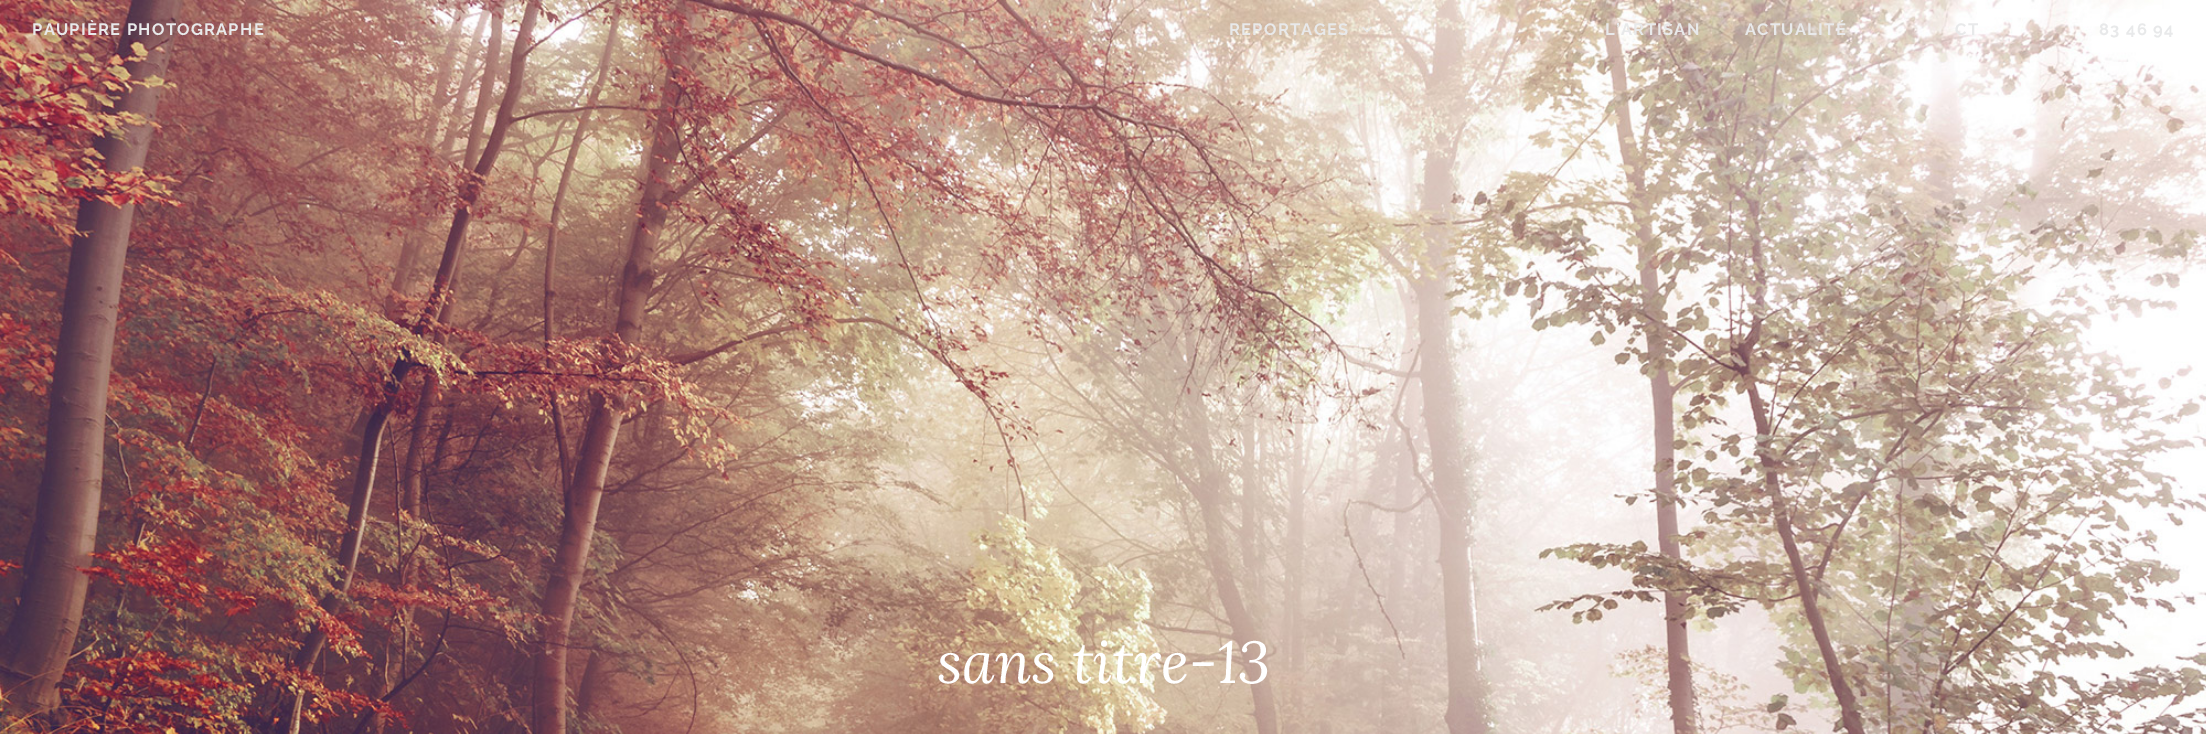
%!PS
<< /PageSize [2206 734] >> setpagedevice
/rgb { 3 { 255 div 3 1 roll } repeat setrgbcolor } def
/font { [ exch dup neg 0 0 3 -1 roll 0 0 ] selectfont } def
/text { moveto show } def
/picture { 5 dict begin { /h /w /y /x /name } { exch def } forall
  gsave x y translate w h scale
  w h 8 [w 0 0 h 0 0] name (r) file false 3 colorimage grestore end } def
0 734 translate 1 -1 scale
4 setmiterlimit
255 255 255 rgb
0 0 2206 734 rectfill
(img_01.rgb) 0 0 2206 734 picture
(img_02.rgb) 1362 26 10 7 picture
/Raleway-Bold 16.5 font
232 233 234 rgb
32 35 moveto 1.25 0 (PAUPIÈRE PHOTOGRAPHE) ashow
1229 35 moveto 1.25 0 (REPORTAGES) ashow
1605 35 moveto 1.25 0 (L’ARTISAN) ashow
1745 35 moveto 1.25 0 (ACTUALITÉ) ashow
1955 35 moveto 1.25 0 (CT) ashow
2099 35 moveto 1.25 0 (83 46 94) ashow
/Lora-Italic 59 font
255 255 255 rgb
(sans titre-13) 937 683 text
showpage
